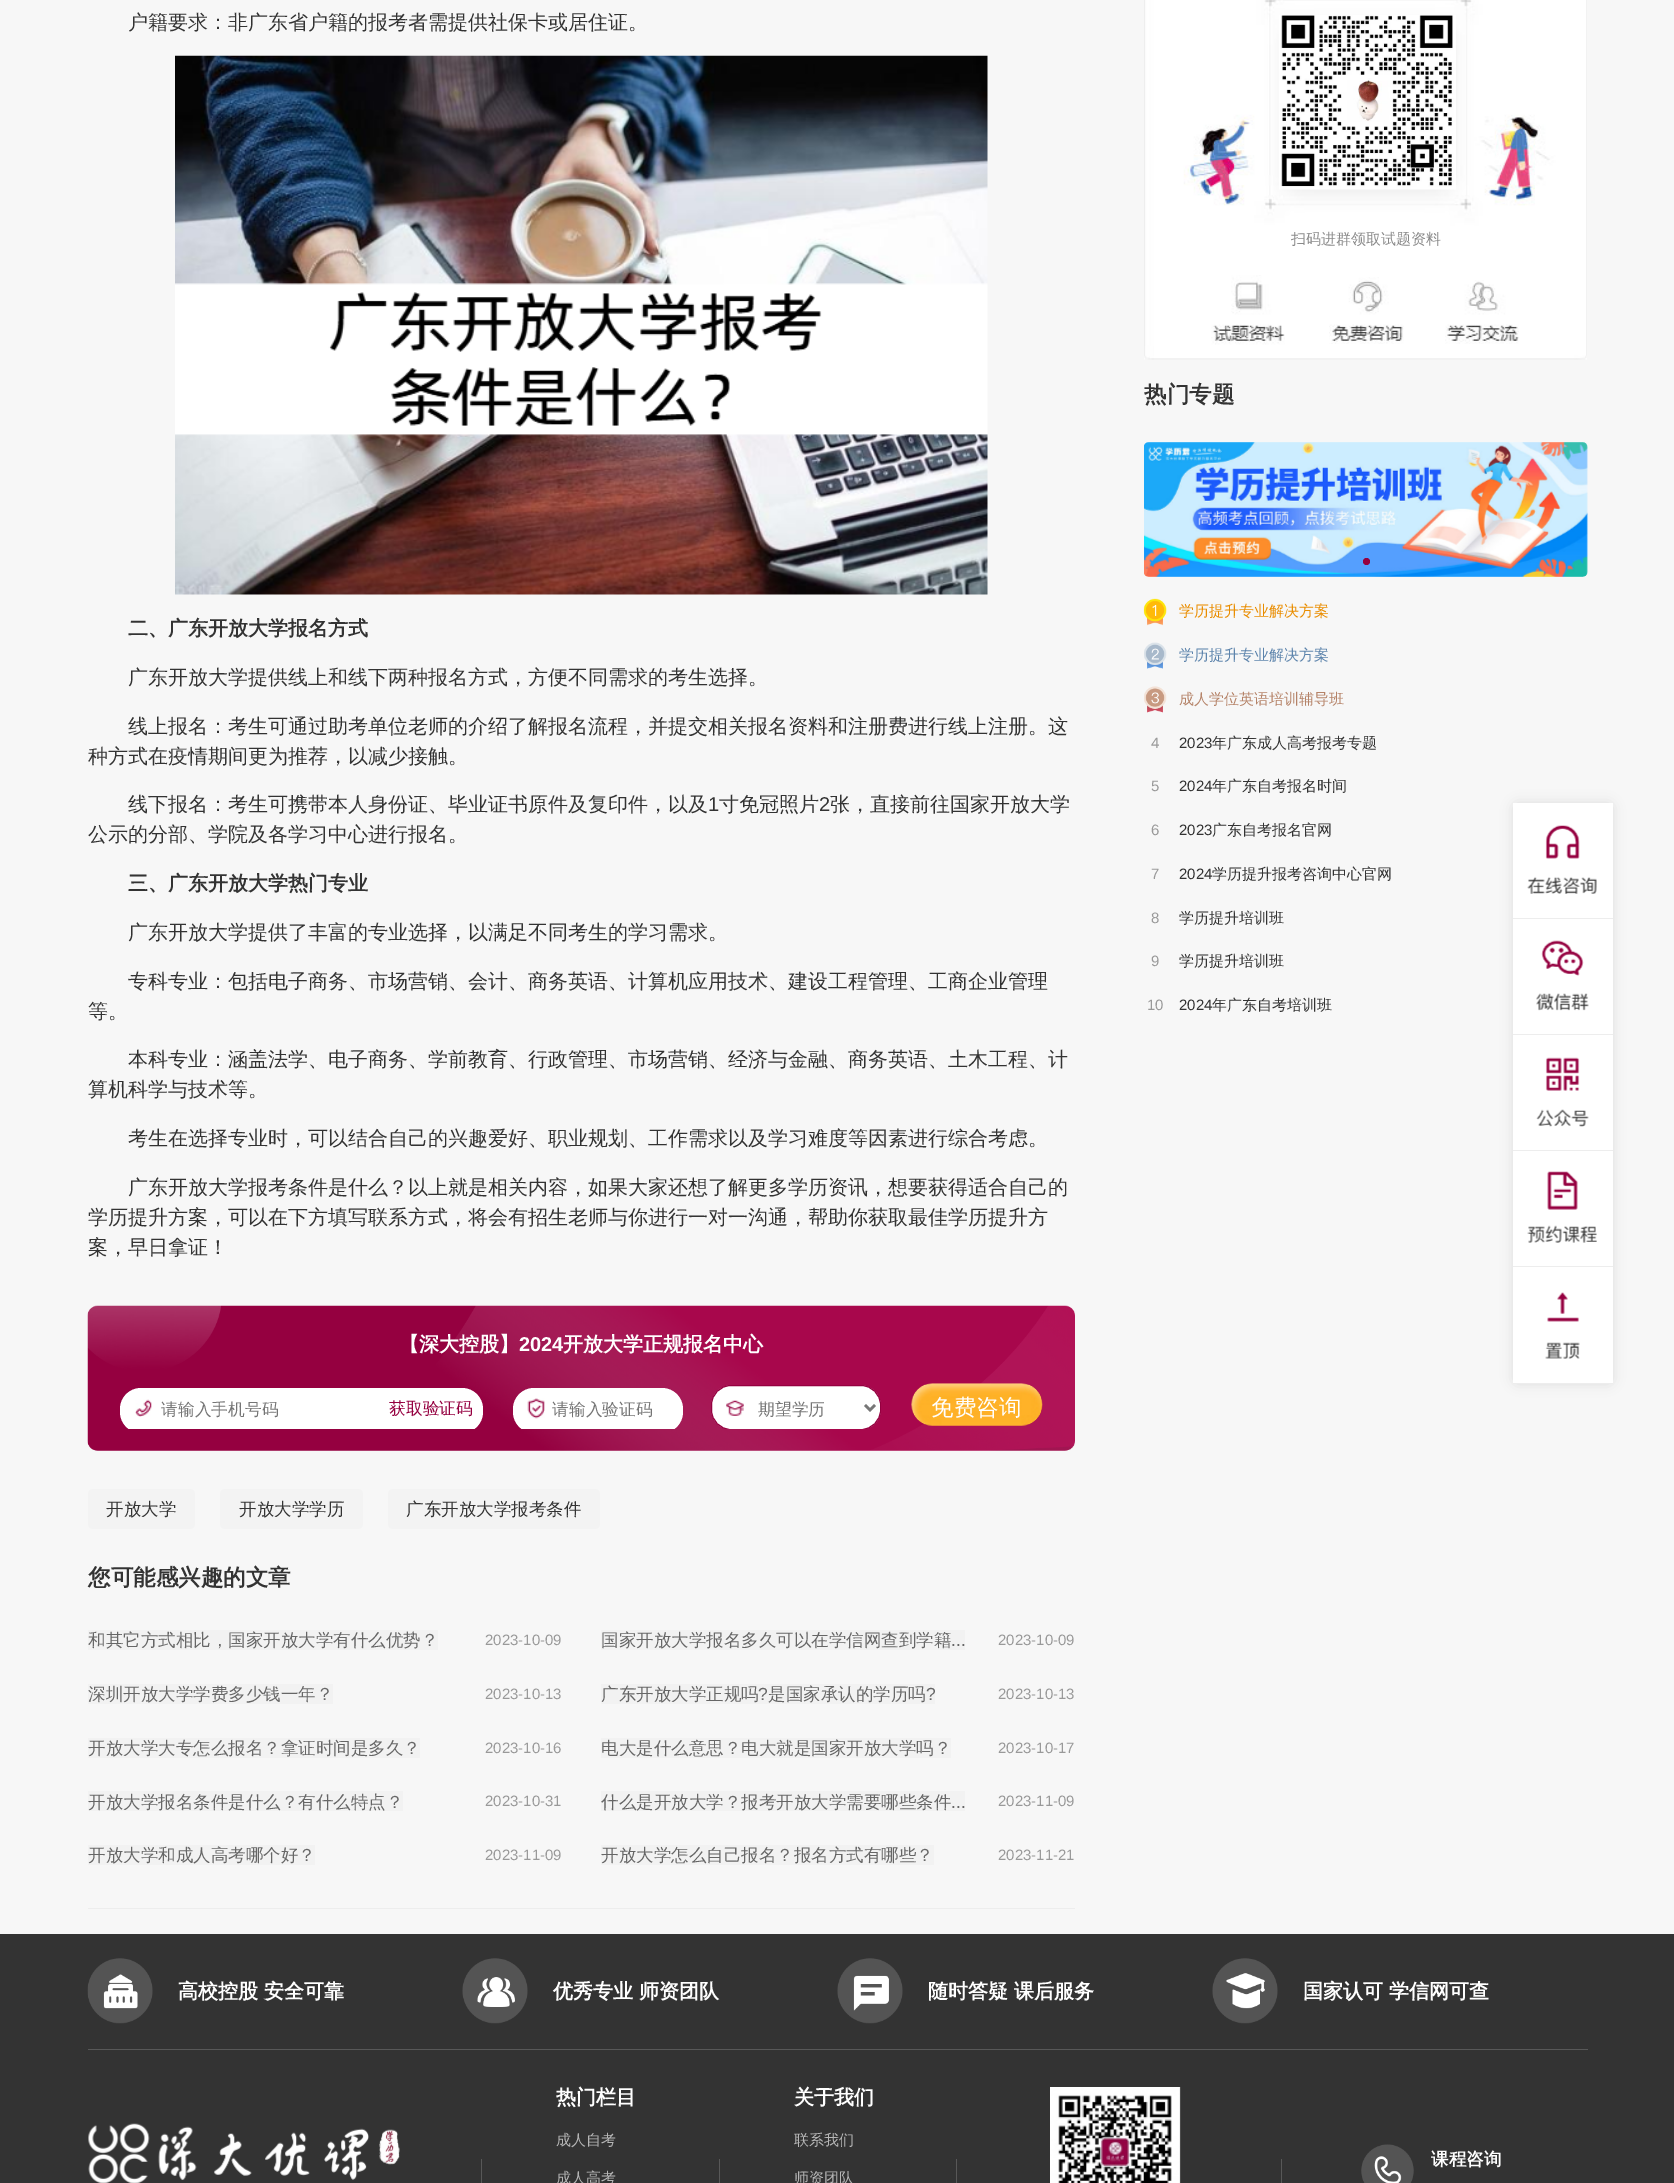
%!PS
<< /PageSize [1674 2183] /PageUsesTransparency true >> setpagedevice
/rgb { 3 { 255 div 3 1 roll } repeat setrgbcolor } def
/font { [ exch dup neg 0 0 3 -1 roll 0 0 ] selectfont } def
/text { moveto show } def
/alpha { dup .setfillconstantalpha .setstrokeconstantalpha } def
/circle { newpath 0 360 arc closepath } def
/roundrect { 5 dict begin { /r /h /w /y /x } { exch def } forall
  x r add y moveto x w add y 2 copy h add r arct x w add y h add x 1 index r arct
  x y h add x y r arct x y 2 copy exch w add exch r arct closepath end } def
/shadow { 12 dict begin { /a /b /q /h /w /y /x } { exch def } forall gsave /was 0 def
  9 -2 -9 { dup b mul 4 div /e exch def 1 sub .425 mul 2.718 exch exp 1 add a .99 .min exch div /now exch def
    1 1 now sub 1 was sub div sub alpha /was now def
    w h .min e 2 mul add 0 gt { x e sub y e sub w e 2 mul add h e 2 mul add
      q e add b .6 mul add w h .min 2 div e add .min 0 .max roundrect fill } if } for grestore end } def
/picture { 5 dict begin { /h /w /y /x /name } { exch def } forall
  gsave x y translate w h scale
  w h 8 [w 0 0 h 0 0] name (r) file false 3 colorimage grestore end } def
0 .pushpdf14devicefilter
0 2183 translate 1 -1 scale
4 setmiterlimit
247 247 247 rgb
0 0 1674 2183 rectfill
(img_01.rgb) 175 55 813 540 picture
(img_02.rgb) 87 1305 988 146 picture
gsave
120 1384 363 45 rectclip
255 255 255 rgb
120 1388 363 45 21 roundrect fill
grestore
(img_03.rgb) 135 1399 17 18 picture
gsave
513 1384 170 45 rectclip
255 255 255 rgb
513 1388 170 45 21 roundrect fill
grestore
(img_04.rgb) 527 1398 18 21 picture
gsave
711 1384 170 45 rectclip
255 255 255 rgb
711.5 1385.5 169 44 19.5 roundrect gsave fill grestore
149 0 64 rgb
stroke
grestore
(img_05.rgb) 726 1400 18 16 picture
119 119 119 rgb
2.5 setlinewidth
865 1405 moveto 5 5 rlineto 5 -5 rlineto stroke
(img_06.rgb) 911 1383 132 43 picture
243 243 243 rgb
88 1489 107 40 5 roundrect fill
220 1489 143 40 5 roundrect fill
388 1489 212 40 5 roundrect fill
237 237 237 rgb
88 1908 987 1 rectfill
242 242 242 rgb
88 1630 350 20 rectfill
601 1630 364 20 rectfill
88 1684 245 20 rectfill
601 1684 334 20 rectfill
88 1738 332 20 rectfill
601 1738 350 20 rectfill
88 1791 315 20 rectfill
601 1791 364 20 rectfill
88 1845 227 20 rectfill
601 1845 333 20 rectfill
(img_07.rgb) 1144 0 443 360 picture
(img_08.rgb) 1279 15 177 175 picture
(img_09.rgb) 1211 275 74 70 picture
(img_10.rgb) 1329 277 75 67 picture
(img_11.rgb) 1445 280 74 64 picture
(img_12.rgb) 1144 442 444 135 picture
149 0 64 rgb
1366.5 561.5 3.5 circle fill
(img_13.rgb) 1143 598 24 28 picture
(img_14.rgb) 1144 642 23 27 picture
(img_15.rgb) 1144 686 23 27 picture
0 0 0 rgb
1513 803 100 581 5 6 0.1 shadow
255 255 255 rgb
1513 919 100 464 rectfill
1513 803 100 115 rectfill
237 237 237 rgb
1513 918 100 1 rectfill
(img_16.rgb) 1527 825 70 69 picture
1513 1034 100 1 rectfill
(img_17.rgb) 1536 940 53 71 picture
1513 1150 100 1 rectfill
(img_18.rgb) 1536 1057 53 70 picture
1513 1266 100 1 rectfill
(img_19.rgb) 1527 1171 70 72 picture
1513 1383 100 1 rectfill
(img_20.rgb) 1545 1292 35 67 picture
51 51 51 rgb
0 1934 1674 249 rectfill
88 88 88 rgb
88 2049 1500 1 rectfill
(img_21.rgb) 87 1958 66 66 picture
(img_22.rgb) 462 1958 66 66 picture
(img_23.rgb) 837 1958 66 66 picture
(img_24.rgb) 1212 1958 66 66 picture
(img_25.rgb) 88 2123 312 60 picture
481 2159 1 24 rectfill
719 2159 1 24 rectfill
956 2159 1 24 rectfill
(img_26.rgb) 1050 2087 131 96 picture
(img_27.rgb) 1361 2144 53 39 picture
1281 2159 1 24 rectfill
/WenQuanYiZenHei-Medium 20 font
51 51 51 rgb
(户籍要求：非广东省户籍的报考者需提供社保卡或居住证。) 128 29 text
/WenQuanYiZenHei-Bold 20 font
(二、广东开放大学报名方式) 128 635 text
/WenQuanYiZenHei-Medium 20 font
(广东开放大学提供线上和线下两种报名方式，方便不同需求的考生选择。) 128 684 text
(线上报名：考生可通过助考单位老师的介绍了解报名流程，并提交相关报名资料和注册费进行线上注册。这) 128 733 text
(种方式在疫情期间更为推荐，以减少接触。) 88 763 text
(线下报名：考生可携带本人身份证、毕业证书原件及复印件，以及) 128 811 text
/LiberationSans-Regular 20 font
(1) 708 811 text
/WenQuanYiZenHei-Medium 20 font
(寸免冠照片) 719 811 text
/LiberationSans-Regular 20 font
(2) 819 811 text
/WenQuanYiZenHei-Medium 20 font
(张，直接前往国家开放大学) 830 811 text
(公示的分部、学院及各学习中心进行报名。) 88 841 text
/WenQuanYiZenHei-Bold 20 font
(三、广东开放大学热门专业) 128 890 text
/WenQuanYiZenHei-Medium 20 font
(广东开放大学提供了丰富的专业选择，以满足不同考生的学习需求。) 128 939 text
(专科专业：包括电子商务、市场营销、会计、商务英语、计算机应用技术、建设工程管理、工商企业管理) 128 988 text
(等。) 88 1018 text
(本科专业：涵盖法学、电子商务、学前教育、行政管理、市场营销、经济与金融、商务英语、土木工程、计) 128 1066 text
(算机科学与技术等。) 88 1096 text
(考生在选择专业时，可以结合自己的兴趣爱好、职业规划、工作需求以及学习难度等因素进行综合考虑。) 128 1145 text
(广东开放大学报考条件是什么？以上就是相关内容，如果大家还想了解更多学历资讯，想要获得适合自己的) 128 1194 text
(学历提升方案，可以在下方填写联系方式，将会有招生老师与你进行一对一沟通，帮助你获取最佳学历提升方) 88 1224 text
(案，早日拿证！) 88 1254 text
/WenQuanYiZenHei-Bold 20 font
255 255 255 rgb
(【深大控股】) 399 1351 text
/LiberationSans-Bold 20 font
(2024) 519 1351 text
/WenQuanYiZenHei-Bold 20 font
(开放大学正规报名中心) 563 1351 text
/WenQuanYiZenHei-Medium 16.75 font
117 117 117 rgb
(请输入手机号码) 161 1415 text
149 0 64 rgb
(获取验证码) 389 1414 text
117 117 117 rgb
(请输入验证码) 552 1415 text
(期望学历) 758 1415 text
/WenQuanYiZenHei-Medium 22.5 font
255 255 255 rgb
(免费咨询) 931 1415 text
/WenQuanYiZenHei-Medium 17.5 font
51 51 51 rgb
(开放大学) 106 1515 text
(开放大学学历) 239 1515 text
(广东开放大学报考条件) 406 1515 text
/WenQuanYiZenHei-Bold 22.5 font
(您可能感兴趣的文章) 88 1585 text
/WenQuanYiZenHei-Medium 17.5 font
102 102 102 rgb
(和其它方式相比，国家开放大学有什么优势？) 88 1646 text
/LiberationSans-Regular 15 font
153 153 153 rgb
(2023-10-09) 485 1645 text
/WenQuanYiZenHei-Medium 17.5 font
102 102 102 rgb
(国家开放大学报名多久可以在学信网查到学籍) 601 1646 text
/LiberationSans-Regular 17.5 font
(...) 951 1646 text
/LiberationSans-Regular 15 font
153 153 153 rgb
(2023-10-09) 998 1645 text
/WenQuanYiZenHei-Medium 17.5 font
102 102 102 rgb
(深圳开放大学学费多少钱一年？) 88 1700 text
/LiberationSans-Regular 15 font
153 153 153 rgb
(2023-10-13) 485 1699 text
/WenQuanYiZenHei-Medium 17.5 font
102 102 102 rgb
(广东开放大学正规吗) 601 1700 text
/LiberationSans-Regular 17.5 font
(?) 758 1700 text
/WenQuanYiZenHei-Medium 17.5 font
(是国家承认的学历吗) 768 1700 text
/LiberationSans-Regular 17.5 font
(?) 926 1700 text
/LiberationSans-Regular 15 font
153 153 153 rgb
(2023-10-13) 998 1699 text
/WenQuanYiZenHei-Medium 17.5 font
102 102 102 rgb
(开放大学大专怎么报名？拿证时间是多久？) 88 1754 text
/LiberationSans-Regular 15 font
153 153 153 rgb
(2023-10-16) 485 1753 text
/WenQuanYiZenHei-Medium 17.5 font
102 102 102 rgb
(电大是什么意思？电大就是国家开放大学吗？) 601 1754 text
/LiberationSans-Regular 15 font
153 153 153 rgb
(2023-10-17) 998 1753 text
/WenQuanYiZenHei-Medium 17.5 font
102 102 102 rgb
(开放大学报名条件是什么？有什么特点？) 88 1808 text
/LiberationSans-Regular 15 font
153 153 153 rgb
(2023-10-31) 485 1806 text
/WenQuanYiZenHei-Medium 17.5 font
102 102 102 rgb
(什么是开放大学？报考开放大学需要哪些条件) 601 1808 text
/LiberationSans-Regular 17.5 font
(...) 951 1808 text
/LiberationSans-Regular 15 font
153 153 153 rgb
(2023-11-09) 998 1806 text
/WenQuanYiZenHei-Medium 17.5 font
102 102 102 rgb
(开放大学和成人高考哪个好？) 88 1861 text
/LiberationSans-Regular 15 font
153 153 153 rgb
(2023-11-09) 485 1860 text
/WenQuanYiZenHei-Medium 17.5 font
102 102 102 rgb
(开放大学怎么自己报名？报名方式有哪些？) 601 1861 text
/LiberationSans-Regular 15 font
153 153 153 rgb
(2023-11-21) 998 1860 text
/WenQuanYiZenHei-Medium 15 font
137 137 137 rgb
(扫码进群领取试题资料) 1291 244 text
/WenQuanYiZenHei-Bold 22.5 font
51 51 51 rgb
(热门专题) 1144 402 text
/WenQuanYiZenHei-Medium 15 font
233 141 0 rgb
(学历提升专业解决方案) 1179 616 text
93 132 172 rgb
(学历提升专业解决方案) 1179 660 text
181 131 104 rgb
(成人学位英语培训辅导班) 1179 704 text
/LiberationSans-Regular 15 font
153 153 153 rgb
(4) 1151 748 text
51 51 51 rgb
(2023) 1179 748 text
/WenQuanYiZenHei-Medium 15 font
(年广东成人高考报考专题) 1212 748 text
/LiberationSans-Regular 15 font
153 153 153 rgb
(5) 1151 791 text
51 51 51 rgb
(2024) 1179 791 text
/WenQuanYiZenHei-Medium 15 font
(年广东自考报名时间) 1212 791 text
/LiberationSans-Regular 15 font
153 153 153 rgb
(6) 1151 835 text
51 51 51 rgb
(2023) 1179 835 text
/WenQuanYiZenHei-Medium 15 font
(广东自考报名官网) 1212 835 text
/LiberationSans-Regular 15 font
153 153 153 rgb
(7) 1151 879 text
51 51 51 rgb
(2024) 1179 879 text
/WenQuanYiZenHei-Medium 15 font
(学历提升报考咨询中心官网) 1212 879 text
/LiberationSans-Regular 15 font
153 153 153 rgb
(8) 1151 923 text
/WenQuanYiZenHei-Medium 15 font
51 51 51 rgb
(学历提升培训班) 1179 923 text
/LiberationSans-Regular 15 font
153 153 153 rgb
(9) 1151 966 text
/WenQuanYiZenHei-Medium 15 font
51 51 51 rgb
(学历提升培训班) 1179 966 text
/LiberationSans-Regular 15 font
153 153 153 rgb
(10) 1147 1010 text
51 51 51 rgb
(2024) 1179 1010 text
/WenQuanYiZenHei-Medium 15 font
(年广东自考培训班) 1212 1010 text
/WenQuanYiZenHei-Bold 20 font
255 255 255 rgb
(高校控股 安全可靠) 178 1998 text
(优秀专业 师资团队) 553 1998 text
(随时答疑 课后服务) 928 1998 text
(国家认可 学信网可查) 1303 1998 text
(热门栏目) 556 2104 text
/WenQuanYiZenHei-Medium 15 font
183 183 183 rgb
(成人自考) 556 2145 text
(成人高考) 556 2183 text
/WenQuanYiZenHei-Bold 20 font
255 255 255 rgb
(关于我们) 794 2104 text
/WenQuanYiZenHei-Medium 15 font
183 183 183 rgb
(联系我们) 794 2145 text
(师资团队) 794 2183 text
/WenQuanYiZenHei-Bold 17.5 font
255 255 255 rgb
(课程咨询) 1431 2165 text
.poppdf14devicefilter showpage
